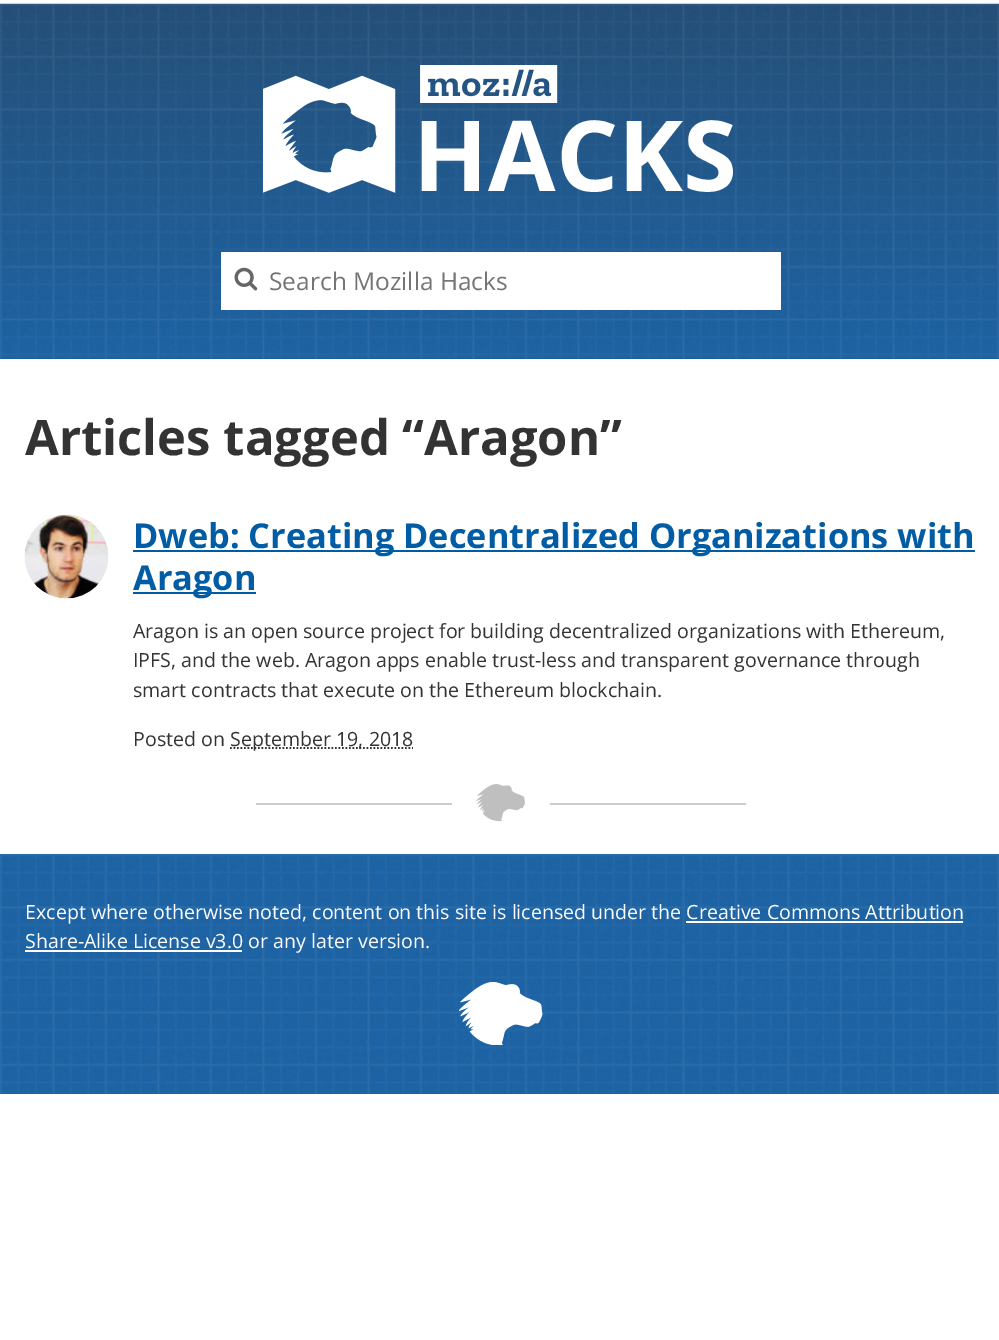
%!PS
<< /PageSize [999 1340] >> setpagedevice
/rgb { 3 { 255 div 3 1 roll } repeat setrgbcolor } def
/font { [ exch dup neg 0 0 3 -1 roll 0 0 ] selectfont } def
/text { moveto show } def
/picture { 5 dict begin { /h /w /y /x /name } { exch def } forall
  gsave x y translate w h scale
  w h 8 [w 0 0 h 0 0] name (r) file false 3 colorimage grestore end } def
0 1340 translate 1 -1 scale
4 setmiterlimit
255 255 255 rgb
0 0 999 1340 rectfill
(img_01.rgb) 0 3 999 356 picture
(img_02.rgb) 263 75 133 118 picture
(img_03.rgb) 420 65 138 38 picture
221 252 560 58 rectfill
(img_04.rgb) 234 267 24 24 picture
(img_05.rgb) 24 514 85 85 picture
0 92 165 rgb
133 550 842 2 rectfill
133 592 123 2 rectfill
51 51 51 rgb
1.8 setlinewidth
[1.75 1.75] 0 setdash
230 748 moveto 183 0 rlineto stroke
204 204 204 rgb
256 803 196 2 rectfill
550 803 196 2 rectfill
(img_06.rgb) 476 784 49 38 picture
24 98 167 rgb
0 854 999 240 rectfill
(img_07.rgb) 0 854 999 240 picture
255 255 255 rgb
686 921 277 2 rectfill
25 950 217 2 rectfill
(img_08.rgb) 459 982 84 63 picture
/OpenSans-Bold 98 font
(HACK) 413 191 text
(S) 683 191 text
/OpenSans-Regular 24.5 font
117 117 117 rgb
(Search Mozilla Hacks) 269 290 text
/OpenSans-Bold 49 font
51 51 51 rgb
(Articles tagged “Aragon”) 25 455 text
/OpenSans-Bold 34.3 font
0 92 165 rgb
(Dweb: Creating Decentralized Organizations with) 133 548 text
(Aragon) 133 590 text
/OpenSans-Regular 19.6 font
51 51 51 rgb
(Aragon is an open source project for building decentralized organizations with Ethereum,) 133 638 text
(IPFS, and the web. Aragon apps enable trust-less and transparent governance through) 133 667 text
(smart contracts that execute on the Ethereum blockchain.) 133 697 text
(Posted on) 133 746 text
(September 19, 2018) 230 746 text
255 255 255 rgb
(Except where otherwise noted, content on this site is licensed under the Creative Commons Attribution) 25 919 text
(Share-Alike License v3.0 or any later version.) 25 948 text
showpage
